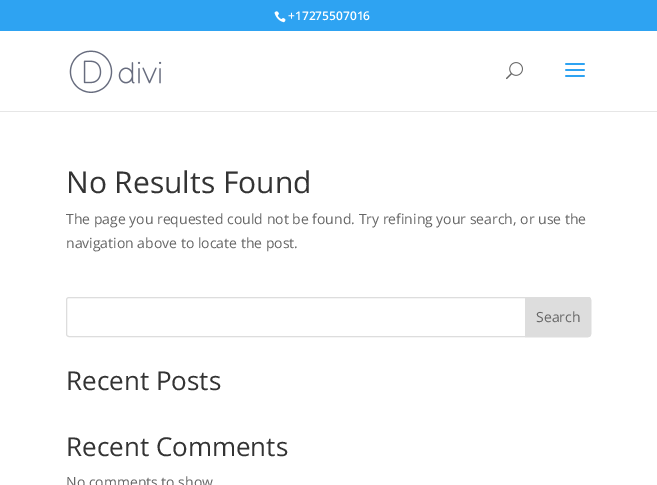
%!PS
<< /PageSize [657 485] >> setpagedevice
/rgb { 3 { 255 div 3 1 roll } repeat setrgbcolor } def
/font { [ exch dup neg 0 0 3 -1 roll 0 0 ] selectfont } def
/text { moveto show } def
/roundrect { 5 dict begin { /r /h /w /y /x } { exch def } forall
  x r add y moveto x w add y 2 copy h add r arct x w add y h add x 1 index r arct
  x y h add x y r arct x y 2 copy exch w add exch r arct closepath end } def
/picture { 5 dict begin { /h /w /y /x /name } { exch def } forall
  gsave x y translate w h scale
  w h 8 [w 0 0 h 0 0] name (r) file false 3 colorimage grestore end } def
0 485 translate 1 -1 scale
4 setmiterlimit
255 255 255 rgb
0 0 657 485 rectfill
46 163 242 rgb
0 0 657 31 rectfill
(img_01.rgb) 274 11 12 12 picture
230 230 230 rgb
0 111 657 1 rectfill
(img_02.rgb) 69 50 93 43 picture
(img_03.rgb) 506 62 17 18 picture
(img_04.rgb) 565 63 20 14 picture
221 221 221 rgb
66.5 297.5 524 39 2.5 roundrect stroke
525.5 297.5 moveto 62.5 0 rlineto 1.5 0 2.5 1 2.5 2.5 rcurveto 0 34 rlineto 0 1.5 -1 2.5 -2.5 2.5 rcurveto -62.5 0 rlineto closepath gsave fill grestore
stroke
/OpenSans-SemiBold 12 font
255 255 255 rgb
(+17275507016) 288 20 text
/OpenSans-Regular 30 font
51 51 51 rgb
(No Results Found) 66 193 text
/OpenSans-Regular 14 font
102 102 102 rgb
(The page you requested could not be found. Try refining your search, or use the) 66 224 text
(navigation above to locate the post.) 66 248 text
(Search) 536 322 text
/OpenSans-Regular 26 font
51 51 51 rgb
(Recent Posts) 66 390 text
(Recent Comments) 66 456 text
/OpenSans-Regular 14 font
102 102 102 rgb
(No comments to show) 66 487 text
showpage
